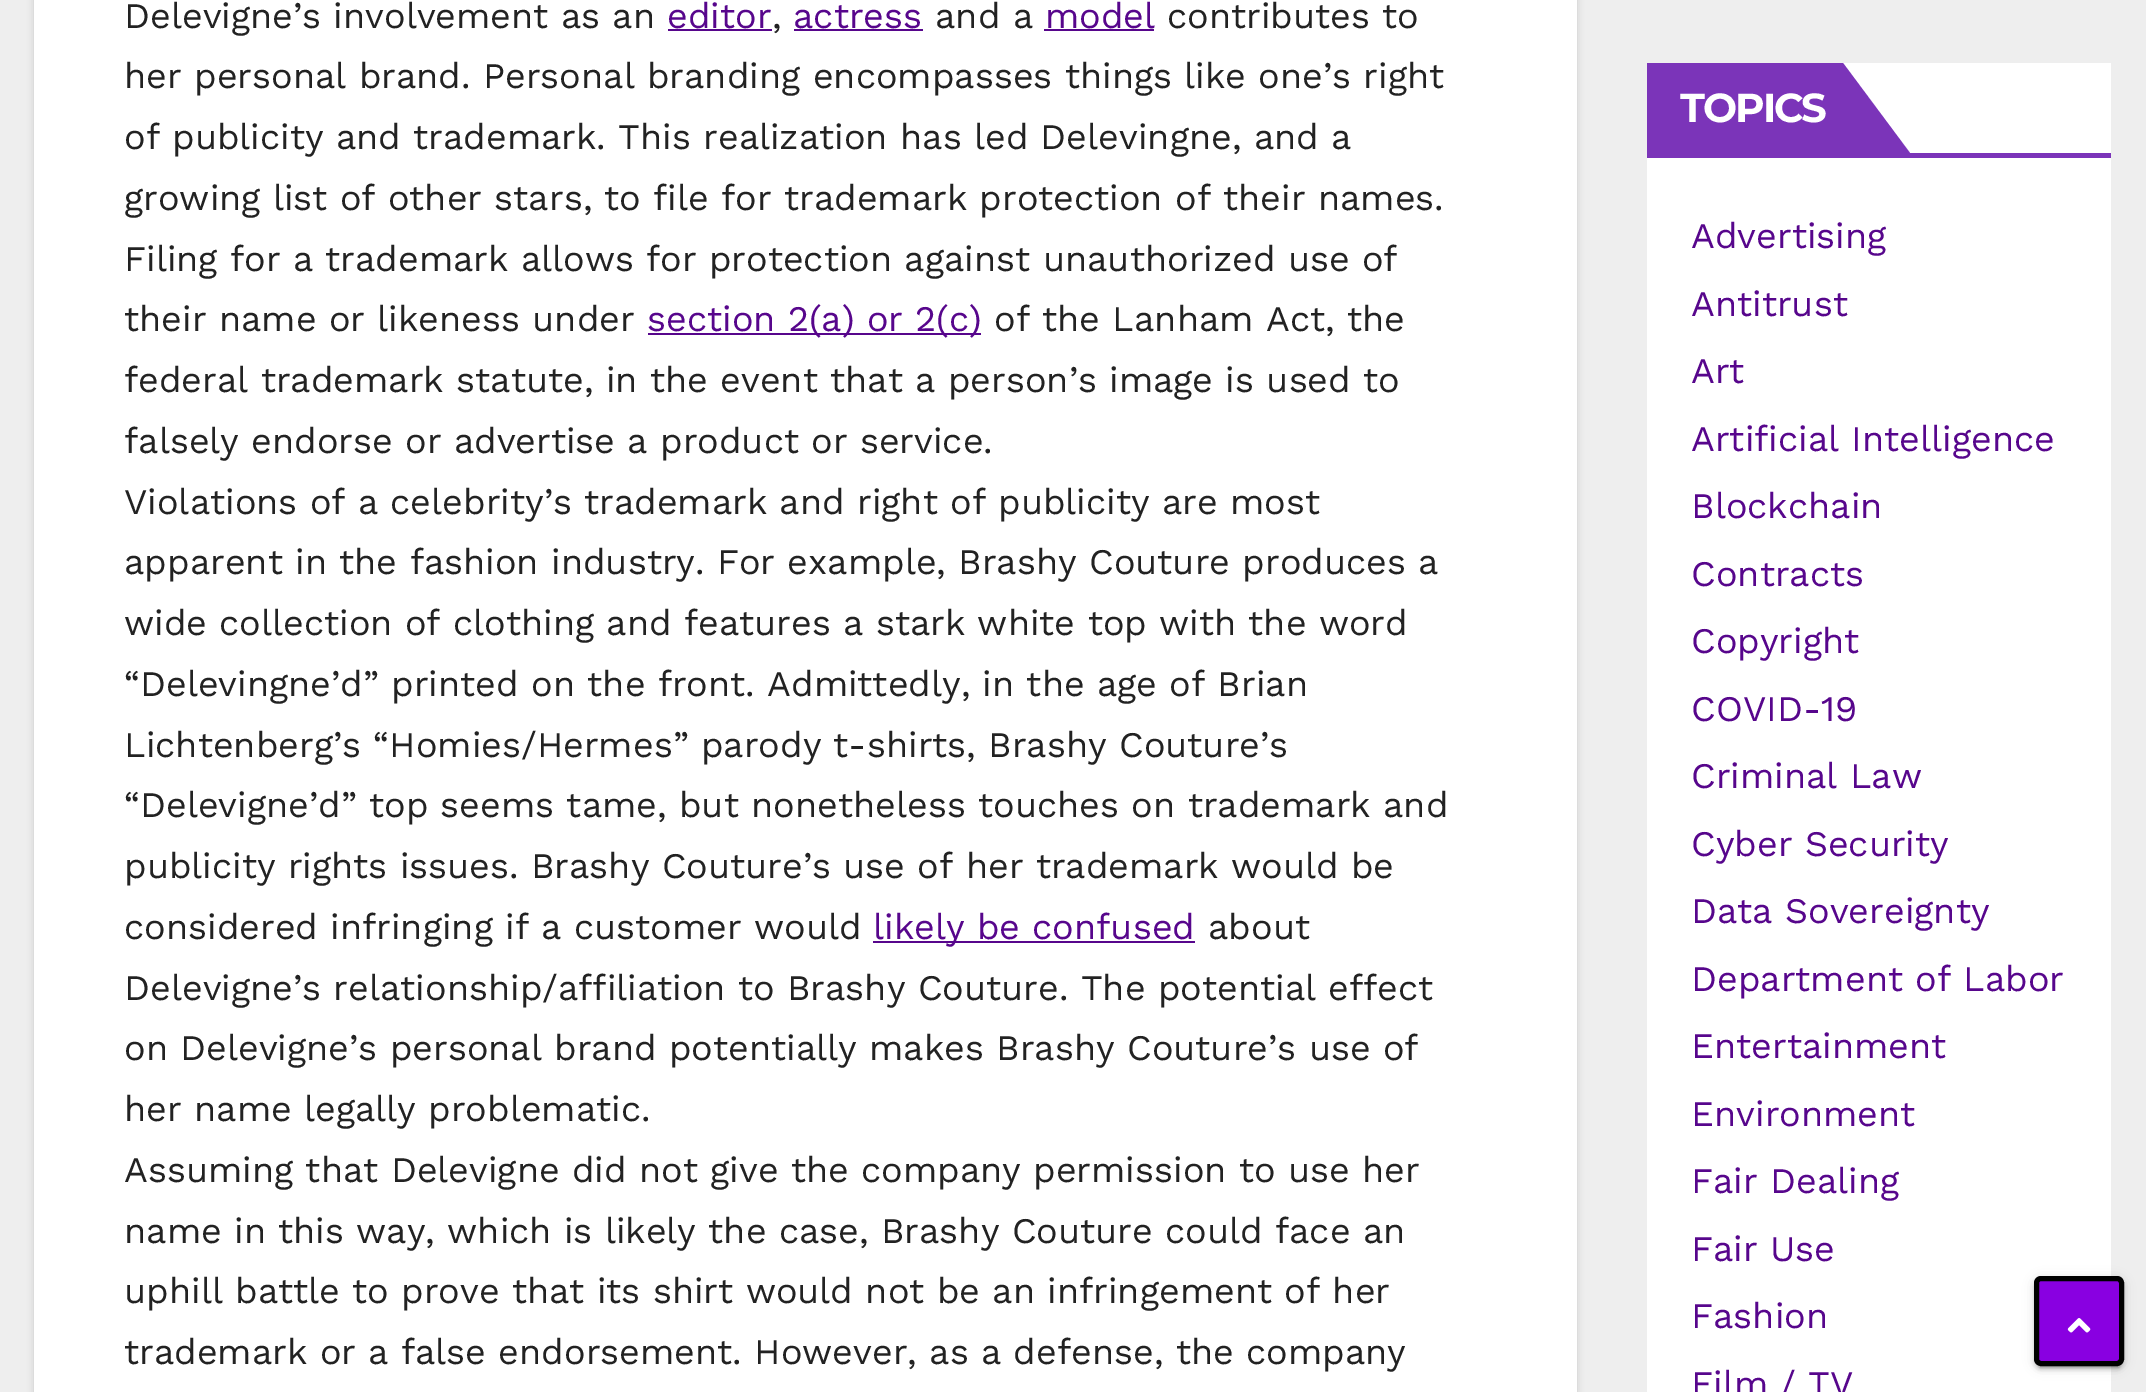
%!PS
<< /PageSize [2146 1392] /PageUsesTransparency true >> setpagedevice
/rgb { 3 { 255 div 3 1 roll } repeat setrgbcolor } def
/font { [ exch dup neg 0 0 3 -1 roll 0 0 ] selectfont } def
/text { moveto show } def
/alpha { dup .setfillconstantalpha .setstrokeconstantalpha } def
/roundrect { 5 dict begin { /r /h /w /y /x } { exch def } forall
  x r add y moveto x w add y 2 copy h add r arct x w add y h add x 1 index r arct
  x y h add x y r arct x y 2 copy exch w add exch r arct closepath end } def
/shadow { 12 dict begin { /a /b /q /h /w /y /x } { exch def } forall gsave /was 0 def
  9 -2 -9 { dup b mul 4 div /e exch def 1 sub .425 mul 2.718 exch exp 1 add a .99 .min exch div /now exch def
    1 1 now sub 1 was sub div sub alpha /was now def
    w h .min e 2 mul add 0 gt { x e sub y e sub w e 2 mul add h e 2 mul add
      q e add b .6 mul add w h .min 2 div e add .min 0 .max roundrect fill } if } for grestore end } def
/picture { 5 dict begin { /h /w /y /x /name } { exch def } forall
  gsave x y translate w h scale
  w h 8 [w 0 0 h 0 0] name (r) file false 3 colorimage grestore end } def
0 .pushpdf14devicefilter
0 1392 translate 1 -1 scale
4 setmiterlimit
238 238 238 rgb
0 0 2146 1392 rectfill
0 0 0 rgb
34 -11 1543 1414 0 3.5 0.15 shadow
255 255 255 rgb
34 0 1543 1392 rectfill
87 6 140 rgb
668 29 104 2 rectfill
794 29 129 2 rectfill
1044 29 110 2 rectfill
648 333 333 2 rectfill
873 941 322 2 rectfill
255 255 255 rgb
1647 63 464 1329 rectfill
123 52 185 rgb
1647 153 464 5 rectfill
1647 63 196 90 rectfill
1843 153 moveto 0 -90 rlineto 67 90 rlineto closepath fill
0 0 0 rgb
2034 1278 90 90 7 5.5 0.12 shadow
2039 1287 81 81 2 1 0.2 shadow
2034 1280 90 90 7 2 0.14 shadow
137 0 225 rgb
2036.5 1278.5 85 85 4.5 roundrect gsave fill grestore
0 0 0 rgb
5 setlinewidth
stroke
(img_01.rgb) 2067 1318 24 15 picture
/WorkSans-Regular 36 font
34 34 34 rgb
(Delevigne’s involvement as an) 124 28 text
87 6 140 rgb
(editor) 667 28 text
34 34 34 rgb
(,) 772 28 text
87 6 140 rgb
(actress) 793 28 text
34 34 34 rgb
(and a) 935 28 text
87 6 140 rgb
(model) 1045 28 text
34 34 34 rgb
(contributes to) 1167 28 text
(her personal brand. Personal branding encompasses things like one’s right) 124 88 text
(of publicity and trademark. This realization has led Delevingne, and a) 124 149 text
(growing list of other stars, to file for trademark protection of their names.) 124 210 text
(Filing for a trademark allows for protection against unauthorized use of) 124 271 text
(their name or likeness under) 124 331 text
87 6 140 rgb
(section 2\(a\) or 2\(c\)) 647 331 text
34 34 34 rgb
(of the Lanham Act, the) 994 331 text
(federal trademark statute, in the event that a person’s image is used to) 124 392 text
(falsely endorse or advertise a product or service.) 124 453 text
(Violations of a celebrity’s trademark and right of publicity are most) 124 514 text
(apparent in the fashion industry. For example, Brashy Couture produces a) 124 574 text
(wide collection of clothing and features a stark white top with the word) 124 635 text
(“Delevingne’d” printed on the front. Admittedly, in the age of Brian) 124 696 text
(Lichtenberg’s “Homies/Hermes” parody t-shirts, Brashy Couture’s) 124 757 text
(“Delevigne’d” top seems tame, but nonetheless touches on trademark and) 124 817 text
(publicity rights issues. Brashy Couture’s use of her trademark would be) 124 878 text
(considered infringing if a customer would) 124 939 text
87 6 140 rgb
(likely be confused) 873 939 text
34 34 34 rgb
(about) 1208 939 text
(Delevigne’s relationship/affiliation to Brashy Couture. The potential effect) 124 1000 text
(on Delevigne’s personal brand potentially makes Brashy Couture’s use of) 124 1060 text
(her name legally problematic.) 124 1121 text
(Assuming that Delevigne did not give the company permission to use her) 124 1182 text
(name in this way, which is likely the case, Brashy Couture could face an) 124 1243 text
(uphill battle to prove that its shirt would not be an infringement of her) 124 1303 text
(trademark or a false endorsement. However, as a defense, the company) 124 1364 text
/Montserrat-Bold 40.5 font
255 255 255 rgb
1680 122 moveto -2 0 (TOPICS) ashow
/WorkSans-Regular 36 font
87 6 140 rgb
(Advertising) 1691 248 text
(Antitrust) 1691 316 text
(Art) 1691 383 text
(Artificial Intelligence) 1691 451 text
(Blockchain) 1691 518 text
(Contracts) 1691 586 text
(Copyright) 1691 653 text
(COVID-19) 1691 721 text
(Criminal Law) 1691 788 text
(Cyber Security) 1691 856 text
(Data Sovereignty) 1691 923 text
(Department of Labor) 1691 991 text
(Entertainment) 1691 1058 text
(Environment) 1691 1126 text
(Fair Dealing) 1691 1193 text
(Fair Use) 1691 1261 text
(Fashion) 1691 1328 text
(Film / TV) 1691 1396 text
.poppdf14devicefilter showpage
